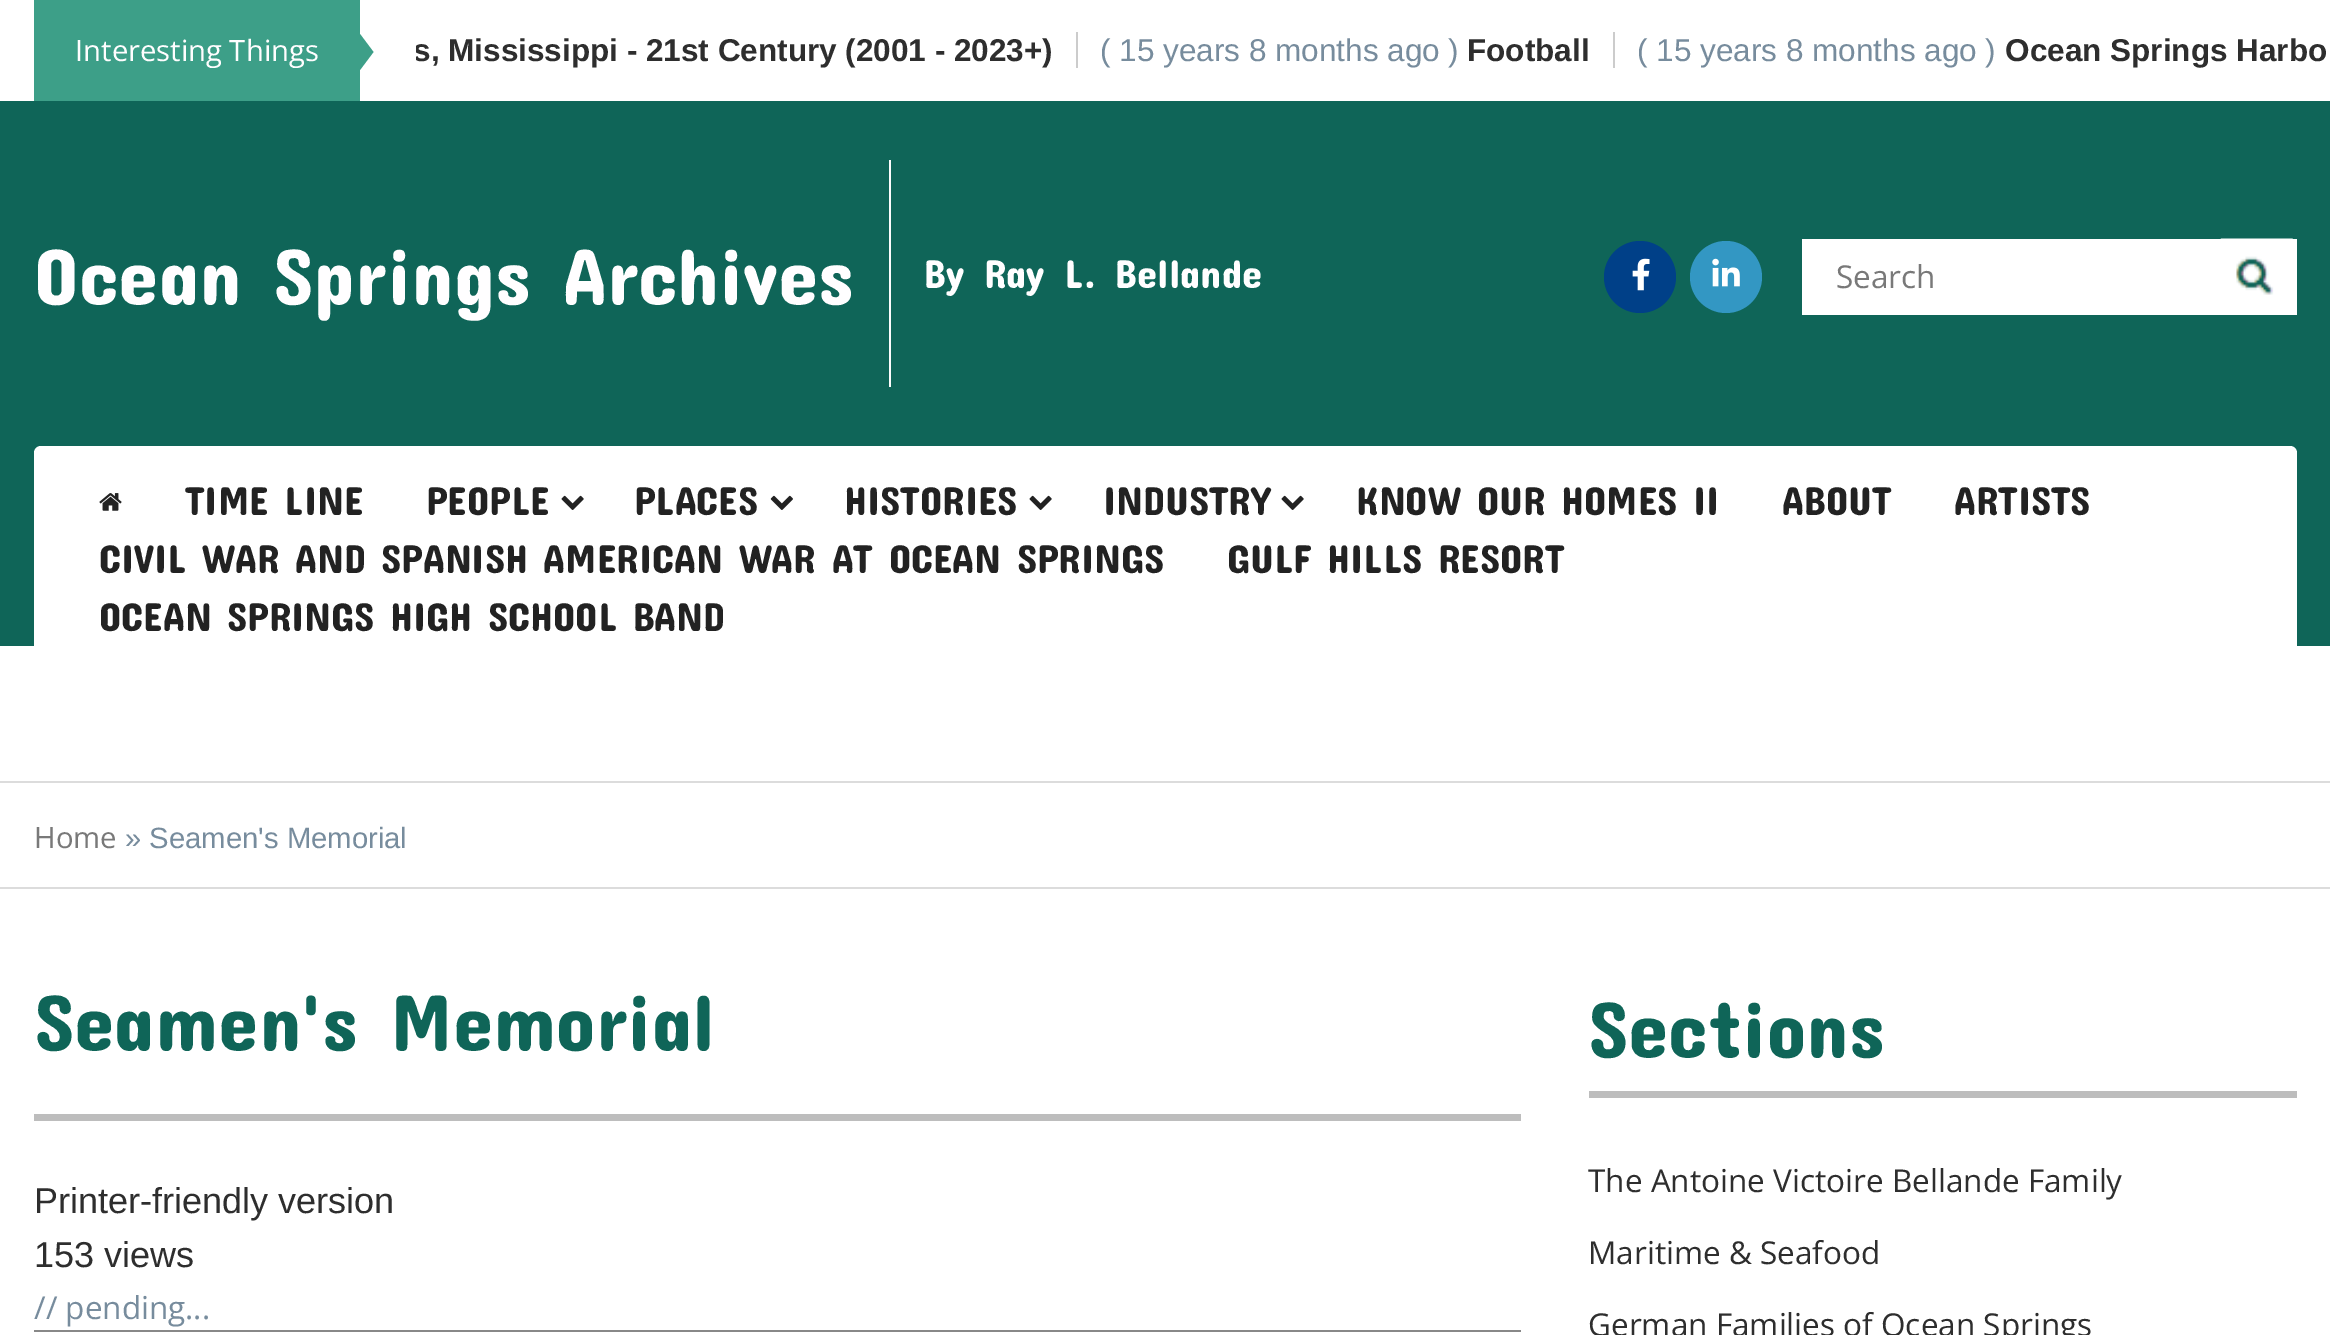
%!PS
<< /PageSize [2330 1335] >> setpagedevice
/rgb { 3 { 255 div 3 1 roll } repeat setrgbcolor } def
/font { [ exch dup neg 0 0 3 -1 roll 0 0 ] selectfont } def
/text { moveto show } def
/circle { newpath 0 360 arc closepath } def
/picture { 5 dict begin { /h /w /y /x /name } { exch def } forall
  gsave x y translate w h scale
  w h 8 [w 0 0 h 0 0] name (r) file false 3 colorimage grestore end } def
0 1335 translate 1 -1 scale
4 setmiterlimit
255 255 255 rgb
0 0 2330 1335 rectfill
15 101 88 rgb
0 101 2330 545 rectfill
61 159 136 rgb
34 0 326 101 rectfill
360 70 moveto 0 -36 rlineto 13.5 18 rlineto closepath fill
204 204 204 rgb
1076 32 2 36 rectfill
1613 32 2 36 rectfill
252 252 252 rgb
889 160 2 227 rectfill
0 64 136 rgb
1640 277 36 circle fill
(img_01.rgb) 1632 258 18 33 picture
51 151 195 rgb
1726 277 36 circle fill
(img_02.rgb) 1712 258 28 29 picture
255 255 255 rgb
1802 239 495 76 rectfill
(img_03.rgb) 2220 238 73 57 picture
41 446 moveto 2249 0 rlineto 4 0 7 3 7 7 rcurveto 0 193 rlineto -2263 0 rlineto 0 -193 rlineto 0 -4 3 -7 7 -7 rcurveto closepath fill
(img_04.rgb) 99 493 23 18 picture
(img_05.rgb) 561 495 23 15 picture
(img_06.rgb) 770 495 23 15 picture
(img_05.rgb) 1029 495 23 15 picture
(img_05.rgb) 1281 495 23 15 picture
220 220 220 rgb
0 781 2330 2 rectfill
0 887 2330 2 rectfill
189 189 189 rgb
34 1114 1487 7 rectfill
136 136 136 rgb
34 1330 1487 2 rectfill
189 189 189 rgb
1589 1091 708 7 rectfill
/OpenSans-Regular 29.25 font
255 254 255 rgb
(Interesting Things) 75 61 text
/LiberationSans-Bold 31.5 font
46 46 46 rgb
(s, Mississippi - 21st Century \(2001 - 2023+\)) 413 61 text
255 255 255 rgb
413 45 3 16 rectfill
/LiberationSans-Regular 31.5 font
119 140 157 rgb
(\( 15 years 8 months ago \)) 1100 61 text
/LiberationSans-Bold 31.5 font
46 46 46 rgb
(Football) 1467 61 text
/LiberationSans-Regular 31.5 font
119 140 157 rgb
(\( 15 years 8 months ago \)) 1637 61 text
/LiberationSans-Bold 31.5 font
46 46 46 rgb
(Ocean Springs Harbo) 2005 61 text
/ConcertOne-Regular 81 font
255 254 255 rgb
(Ocean Springs Archives) 34 305 text
/ConcertOne-Regular 40.5 font
924 288 moveto 4 0 32 (By Ray L. Bellande) widthshow
/OpenSans-Regular 31.5 font
121 121 121 rgb
(Search) 1836 288 text
/ConcertOne-Regular 40.5 font
34 34 34 rgb
(TIME LINE) 185 515 text
(PEOPLE) 426 515 text
(PLACES) 634 515 text
(HISTORIES) 844 515 text
(INDUSTRY) 1103 515 text
(KNOW OUR HOMES II) 1356 515 text
(ABOUT) 1782 515 text
(ARTISTS) 1954 515 text
(CIVIL WAR AND SPANISH AMERICAN WAR AT OCEAN SPRINGS) 99 573 text
(GULF HILLS RESORT) 1227 573 text
(OCEAN SPRINGS HIGH SCHOOL BAND) 99 631 text
/OpenSans-Regular 29.25 font
121 121 121 rgb
(Home) 34 848 text
/LiberationSans-Regular 29.25 font
119 140 157 rgb
(» Seamen's Memorial) 125 848 text
/ConcertOne-Regular 81 font
15 101 88 rgb
(Seamen's Memorial) 34 1051 text
/LiberationSans-Regular 36 font
46 46 46 rgb
(Printer-friendly version) 34 1213 text
(153 views) 34 1267 text
/OpenSans-Regular 31.5 font
119 140 157 rgb
(// pending...) 34 1319 text
/ConcertOne-Regular 81 font
15 101 88 rgb
(Sections) 1588 1058 text
/OpenSans-Regular 31.5 font
46 46 46 rgb
(The Antoine Victoire Bellande Family) 1588 1192 text
(Maritime & Seafood) 1588 1264 text
(German Families of Ocean Springs) 1588 1336 text
showpage
